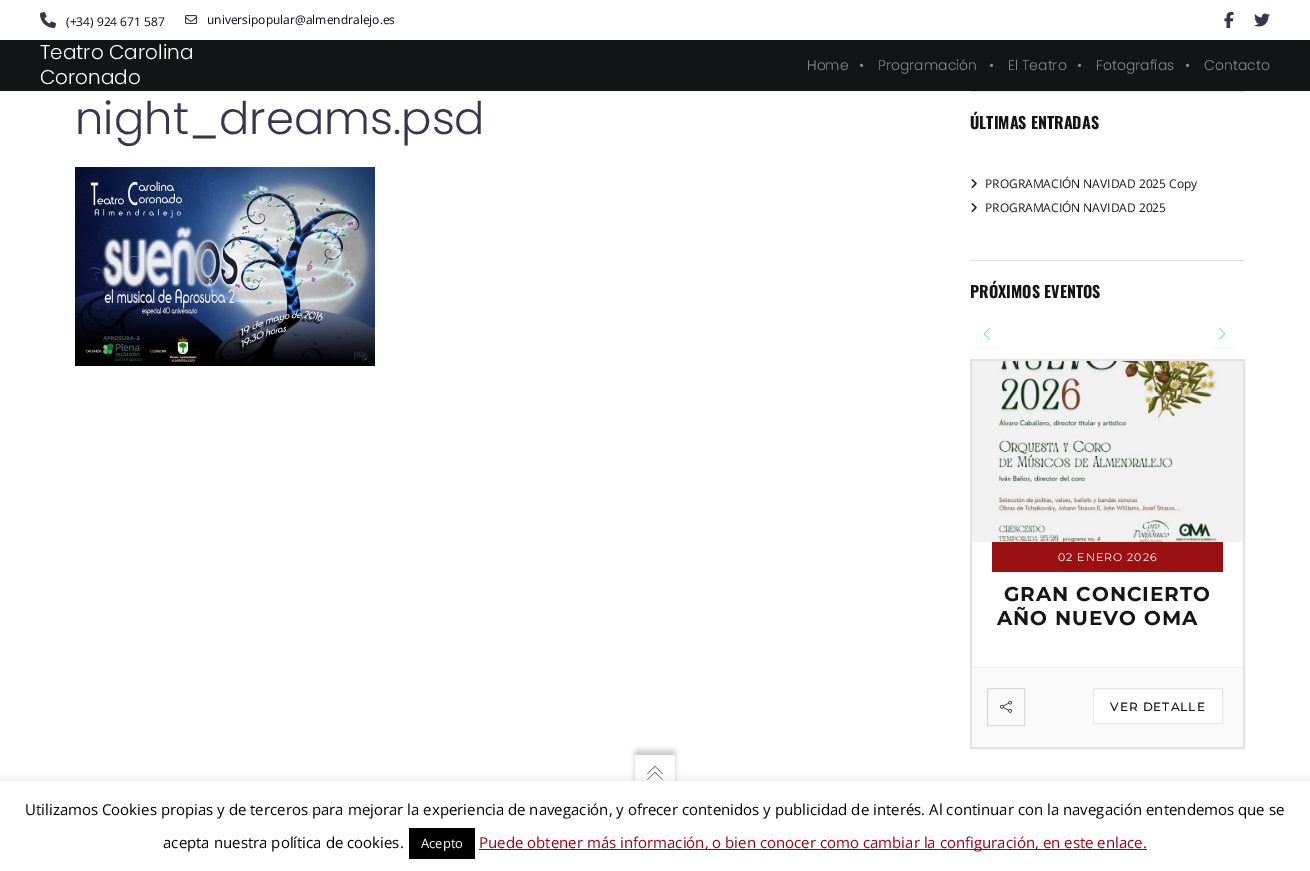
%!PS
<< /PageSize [1310 871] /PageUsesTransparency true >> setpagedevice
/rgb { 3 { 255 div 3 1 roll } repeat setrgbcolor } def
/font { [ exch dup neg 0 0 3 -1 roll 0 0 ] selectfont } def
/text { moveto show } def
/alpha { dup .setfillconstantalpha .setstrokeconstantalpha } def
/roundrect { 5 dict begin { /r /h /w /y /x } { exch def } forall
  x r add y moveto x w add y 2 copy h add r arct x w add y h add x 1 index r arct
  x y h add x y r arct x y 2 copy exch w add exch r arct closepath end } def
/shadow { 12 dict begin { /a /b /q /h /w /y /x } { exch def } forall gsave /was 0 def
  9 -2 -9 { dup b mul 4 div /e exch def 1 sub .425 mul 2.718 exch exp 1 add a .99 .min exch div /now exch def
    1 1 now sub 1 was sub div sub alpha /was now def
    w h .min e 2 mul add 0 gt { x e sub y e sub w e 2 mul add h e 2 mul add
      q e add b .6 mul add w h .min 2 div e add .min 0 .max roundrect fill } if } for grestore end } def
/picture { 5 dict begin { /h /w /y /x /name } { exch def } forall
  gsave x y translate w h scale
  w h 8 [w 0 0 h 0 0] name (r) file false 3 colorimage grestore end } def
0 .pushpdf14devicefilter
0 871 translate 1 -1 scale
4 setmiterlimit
255 255 255 rgb
0 0 1310 871 rectfill
(img_01.rgb) 40 12 16 16 picture
(img_02.rgb) 185 15 12 9 picture
(img_03.rgb) 1224 12 10 16 picture
(img_04.rgb) 1254 13 16 14 picture
19 20 22 rgb
0 40 1310 51 rectfill
(img_05.rgb) 75 167 300 199 picture
221 221 221 rgb
970 91 275 1 rectfill
(img_06.rgb) 971 179 6 9 picture
(img_06.rgb) 971 203 6 9 picture
970 260 275 1 rectfill
248 248 248 rgb
975 344 moveto 0 5 1.5 5 6 5 rcurveto 13 0 rlineto 4.5 0 6 0 6 -5 rcurveto 0 1.5 -1.5 3 -3 3 rcurveto -19 0 rlineto -1.5 0 -3 -1.5 -3 -3 rcurveto closepath fill
(img_07.rgb) 983 327 8 13 picture
1210 344 moveto 0 5 1.5 5 6 5 rcurveto 13 0 rlineto 4.5 0 6 0 6 -5 rcurveto 0 1.5 -1.5 3 -3 3 rcurveto -19 0 rlineto -1.5 0 -3 -1.5 -3 -3 rcurveto closepath fill
(img_08.rgb) 1218 327 8 13 picture
251 251 251 rgb
970 749 275 2 rectfill
227 227 227 rgb
2 setlinewidth
971 360 273 388 rectstroke
(img_09.rgb) 972 361 271 181 picture
155 16 16 rgb
992 542 231 30 rectfill
250 250 250 rgb
972 668 271 79 rectfill
239 239 239 rgb
972 667 271 1 rectfill
217 217 217 rgb
1 setlinewidth
987.5 688.5 37 37 rectstroke
(img_10.rgb) 1000 700 12 13 picture
255 255 255 rgb
1093.5 688.5 moveto 129 0 rlineto 0 35 rlineto -129 0 rlineto closepath gsave fill grestore
232 232 232 rgb
stroke
0 0 0 rgb
635 750 40 40 3 2.5 0.2 shadow
255 255 255 rgb
638 755 moveto 34 0 rlineto 1.5 0 3 1.5 3 3 rcurveto 0 37 rlineto -40 0 rlineto 0 -37 rlineto 0 -1.5 1.5 -3 3 -3 rcurveto closepath fill
(img_11.rgb) 647 766 16 14 picture
172 171 171 rgb
0 780 1310 90 0 5 0.3 shadow
255 255 255 rgb
0 781 1310 90 rectfill
0 0 0 rgb
409 828 66 31 rectfill
158 0 20 rgb
479 849 668 1 rectfill
/OpenSans-Regular 12 font
9 3 32 rgb
(\(+34\) 924 671 587) 66 26 text
(universipopular@almendralejo.es) 207 24 text
/Poppins-Light 20 font
255 255 255 rgb
(Teatro Carolina) 40 59 text
(Coronado) 40 84 text
/Poppins-Light 14 font
137 138 139 rgb
(Home) 807 70 text
(•) 859 70 text
(Programación) 878 70 text
(•) 989 70 text
(El Teatro) 1008 70 text
(•) 1077 70 text
(Fotografías) 1096 70 text
(•) 1185 70 text
(Contacto) 1204 70 text
/Poppins-Light 45 font
58 53 76 rgb
(night_dreams.psd) 75 134 text
/Oswald-Bold 16 font
21 21 21 rgb
(ÚLTIMAS ENTRADAS) 970 129 text
/OpenSans-Regular 12 font
(PROGRAMACIÓN NAVIDAD 2025 Copy) 985 188 text
(PROGRAMACIÓN NAVIDAD 2025) 985 212 text
/Oswald-Bold 16 font
(PRÓXIMOS EVENTOS) 970 298 text
/Montserrat-Regular 11 font
255 255 255 rgb
1058 561 moveto 1 0 (02 ENERO 2026) ashow
/Montserrat-Bold 20 font
21 21 21 rgb
1004 601 moveto 1 0 (GRAN CONCIERTO) ashow
997 625 moveto 1 0 (AÑO NUEVO OMA) ashow
/Montserrat-Medium 12 font
1110 711 moveto 1 0 (VER DETALLE) ashow
/OpenSans-Regular 15 font
0 0 0 rgb
(Utilizamos Cookies propias y de terceros para mejorar la experiencia de navegación, y ofrecer contenidos y publicidad de interés. Al continuar con la navegación entendemos que se) 25 815 text
(acepta nuestra política de cookies.) 163 848 text
/OpenSans-Regular 13 font
255 255 255 rgb
(Acepto) 421 848 text
/OpenSans-Regular 15 font
158 0 20 rgb
(Puede obtener más información, o bien conocer como cambiar la configuración, en este enlace.) 479 848 text
.poppdf14devicefilter showpage
